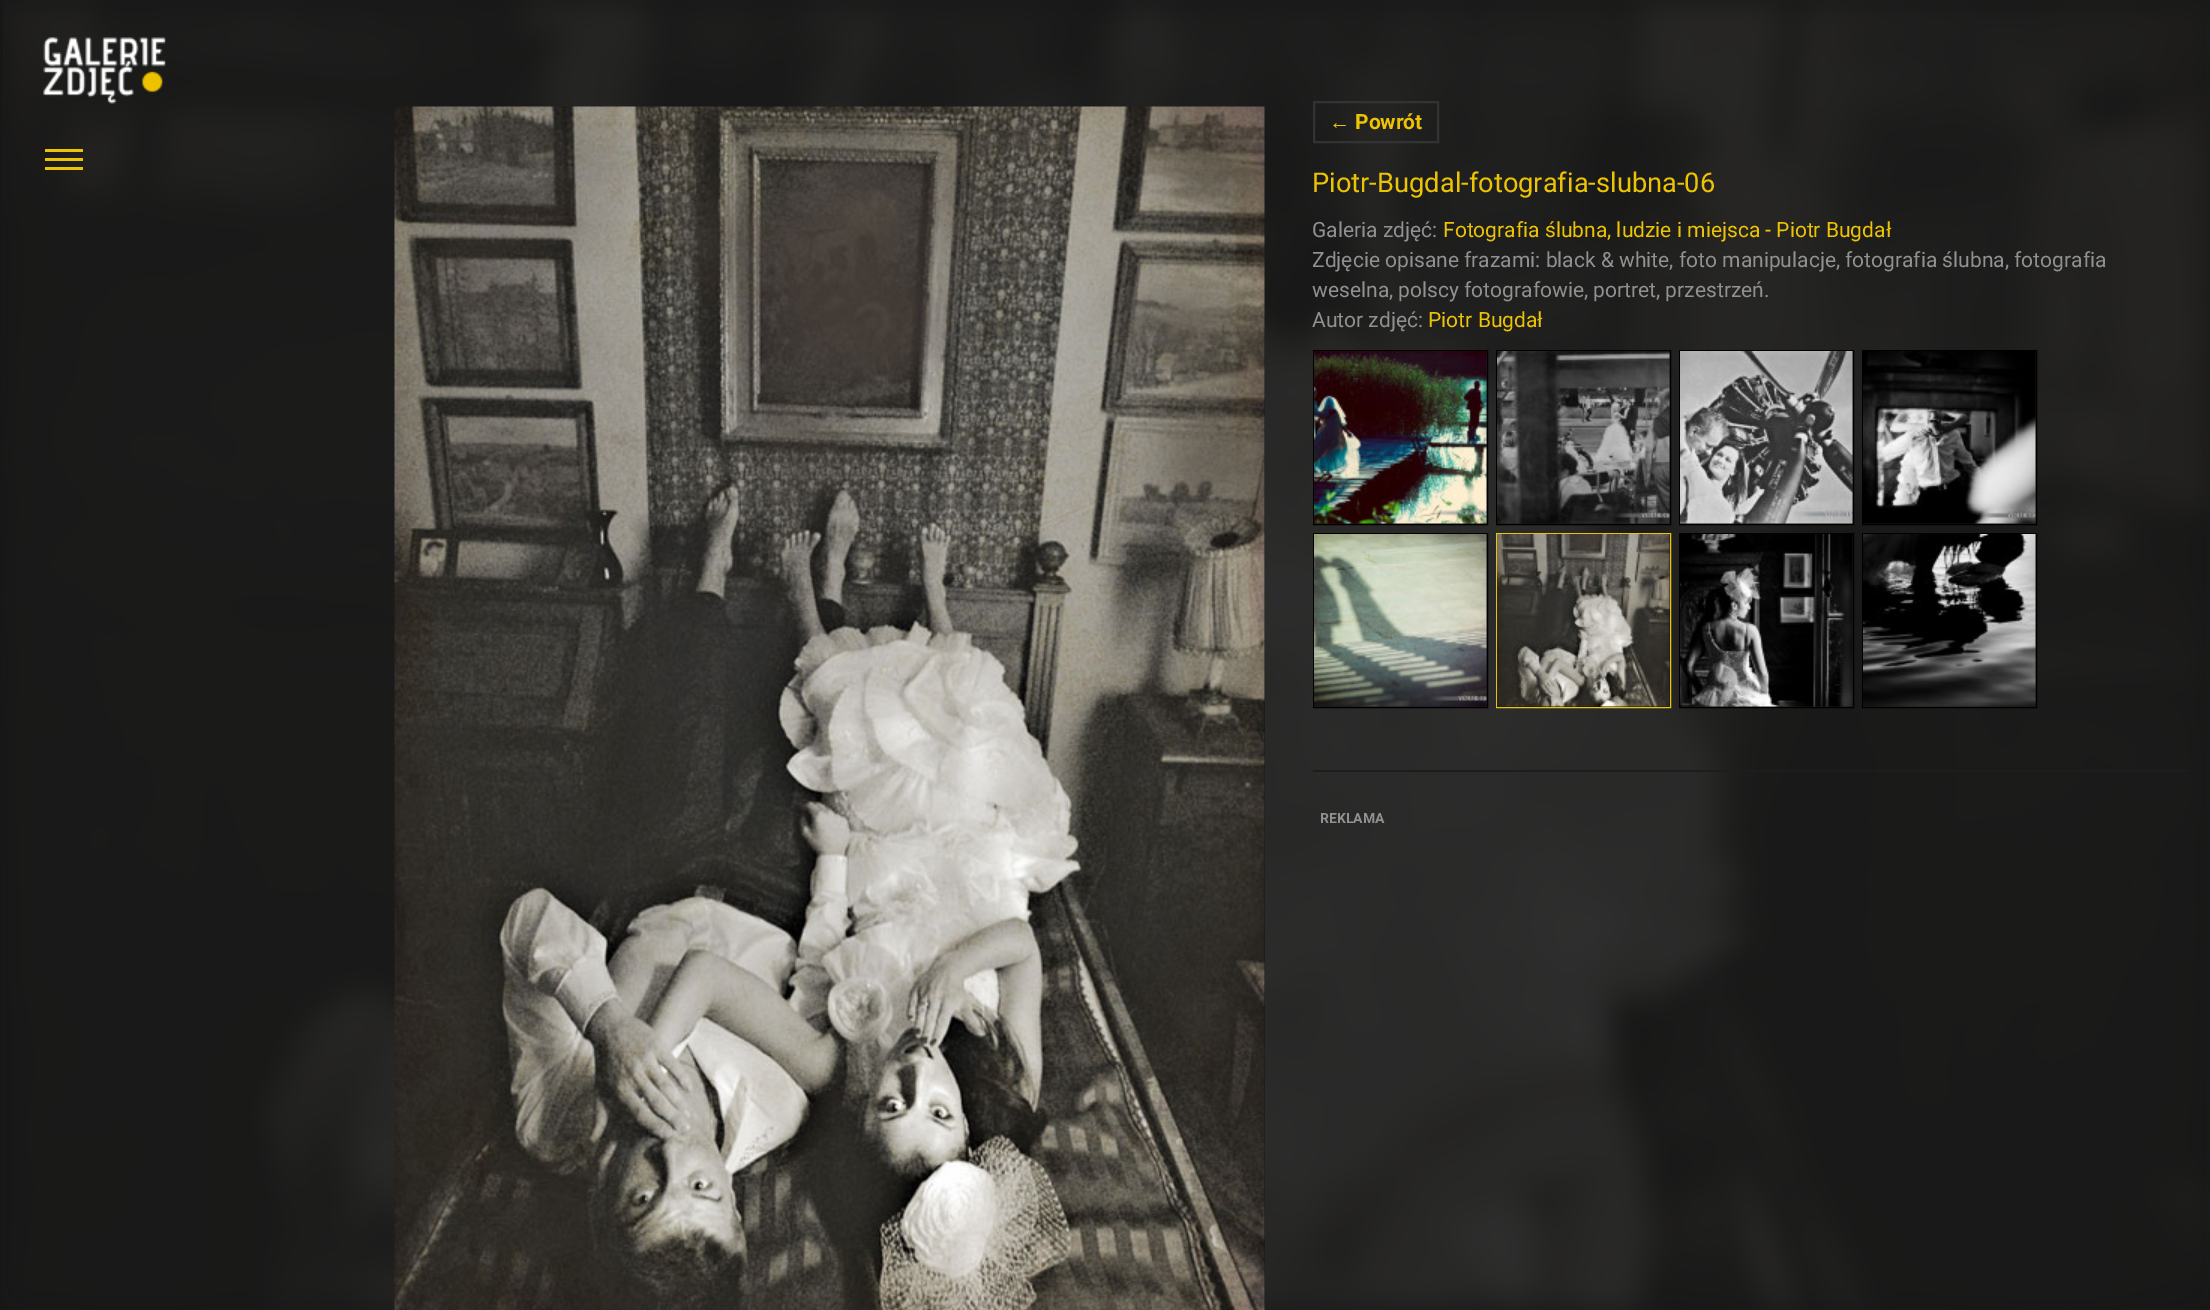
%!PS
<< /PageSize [2210 1310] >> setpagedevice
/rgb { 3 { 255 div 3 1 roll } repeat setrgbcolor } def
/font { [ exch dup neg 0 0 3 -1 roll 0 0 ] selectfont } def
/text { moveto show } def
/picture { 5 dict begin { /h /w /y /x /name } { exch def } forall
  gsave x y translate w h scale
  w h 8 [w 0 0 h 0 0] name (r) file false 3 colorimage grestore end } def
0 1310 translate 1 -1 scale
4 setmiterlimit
23 23 23 rgb
0 0 2210 1310 rectfill
(img_01.rgb) 3 0 2207 1310 picture
(img_02.rgb) 43 37 123 67 picture
237 196 5 rgb
45 149 38 3 rectfill
45 158 38 3 rectfill
45 167 38 3 rectfill
23 23 23 rgb
1264 107 1 1203 rectfill
(img_03.rgb) 394 106 871 1204 picture
51 51 51 rgb
2 setlinewidth
1314 102 124 40 rectstroke
0 0 0 rgb
1314 351 173 173 rectstroke
23 23 23 rgb
1314 351 173 173 rectfill
(img_04.rgb) 1314 351 173 173 picture
0 0 0 rgb
1497 351 173 173 rectstroke
23 23 23 rgb
1497 351 173 173 rectfill
(img_05.rgb) 1497 351 173 173 picture
0 0 0 rgb
1680 351 173 173 rectstroke
23 23 23 rgb
1680 351 173 173 rectfill
(img_06.rgb) 1680 351 173 173 picture
0 0 0 rgb
1863 351 173 173 rectstroke
23 23 23 rgb
1863 351 173 173 rectfill
(img_07.rgb) 1863 351 173 173 picture
0 0 0 rgb
1314 534 173 173 rectstroke
23 23 23 rgb
1314 534 173 173 rectfill
(img_08.rgb) 1314 534 173 173 picture
237 196 5 rgb
1497 534 173 173 rectstroke
23 23 23 rgb
1497 534 173 173 rectfill
(img_09.rgb) 1497 534 173 173 picture
0 0 0 rgb
1680 534 173 173 rectstroke
23 23 23 rgb
1680 534 173 173 rectfill
(img_10.rgb) 1680 534 173 173 picture
0 0 0 rgb
1863 534 173 173 rectstroke
23 23 23 rgb
1863 534 173 173 rectfill
(img_11.rgb) 1863 534 173 173 picture
29 29 29 rgb
1313 770 876 2 rectfill
/LiberationSans-Bold 21 font
237 196 5 rgb
(←) 1329 129 text
/Roboto-Bold 21 font
(Powrót) 1355 129 text
/Roboto-Regular 27.25 font
(Piotr-Bugdal-fotografia-slubna-06) 1312 192 text
/Roboto-Regular 21 font
145 145 145 rgb
(Galeria zdjęć:) 1312 237 text
237 196 5 rgb
(Fotografia ślubna, ludzie i miejsca - Piotr Bugdał) 1443 237 text
145 145 145 rgb
(Zdjęcie opisane frazami: black & white, foto manipulacje, fotografia ślubna, fotografia) 1312 267 text
(weselna, polscy fotografowie, portret, przestrzeń.) 1312 297 text
(Autor zdjęć:) 1312 327 text
237 196 5 rgb
(Piotr Bugdał) 1428 327 text
/Roboto-Bold 14 font
145 145 145 rgb
(REKLAMA) 1320 823 text
showpage
